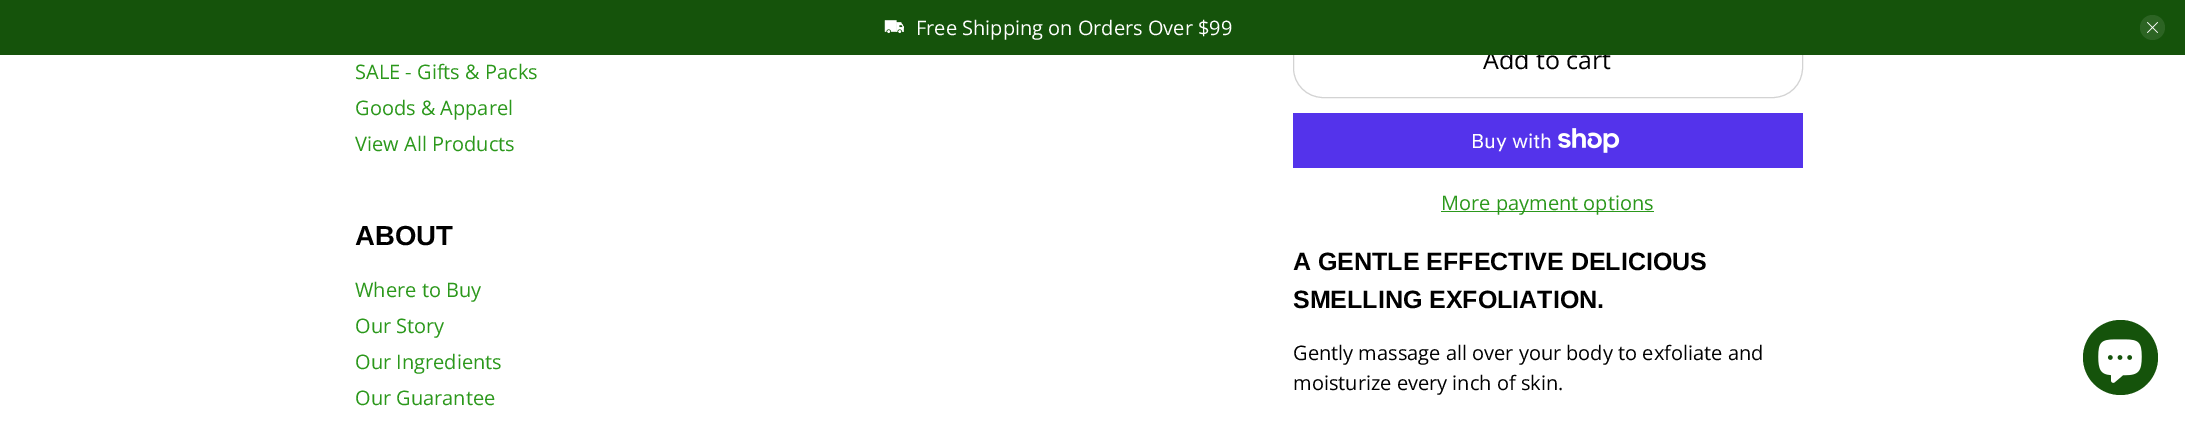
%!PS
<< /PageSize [2185 421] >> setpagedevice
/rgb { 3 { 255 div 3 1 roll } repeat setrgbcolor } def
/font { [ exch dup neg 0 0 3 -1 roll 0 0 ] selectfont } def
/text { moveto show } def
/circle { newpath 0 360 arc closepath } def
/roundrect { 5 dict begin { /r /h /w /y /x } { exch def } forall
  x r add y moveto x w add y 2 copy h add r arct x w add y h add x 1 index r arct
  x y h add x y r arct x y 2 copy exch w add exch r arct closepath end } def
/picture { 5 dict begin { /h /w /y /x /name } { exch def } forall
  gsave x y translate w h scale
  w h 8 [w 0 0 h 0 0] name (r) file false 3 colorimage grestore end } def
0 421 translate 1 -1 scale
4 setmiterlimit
255 255 255 rgb
0 0 2185 421 rectfill
211 211 211 rgb
1293.5 23.5 509 74 29.5 roundrect stroke
84 51 235 rgb
1293 113 510 55 rectfill
(img_03.rgb) 1558 128 62 25 picture
43 152 27 rgb
1441 211 213 1 rectfill
21 83 11 rgb
2120.5 357.5 37.5 circle fill
(img_04.rgb) 2098 339 44 44 picture
/OpenSans-Regular 20 font
43 152 27 rgb
(SALE - Gifts & Packs) 355 79 text
(Goods & Apparel) 355 115 text
(View All Products) 355 151 text
/Arimo-Bold 27.5 font
0 0 0 rgb
(ABOUT) 355 245 text
/OpenSans-Regular 20 font
43 152 27 rgb
(Where to Buy) 355 297 text
(Our Story) 355 333 text
(Our Ingredients) 355 369 text
(Our Guarantee) 355 405 text
/OpenSans-Regular 25 font
0 0 0 rgb
(Add to cart) 1483 69 text
21 83 11 rgb
0 0 2185 55 rectfill
44 100 35 rgb
2152.5 27.5 12.5 circle fill
(img_02.rgb) 2147 22 11 11 picture
(img_01.rgb) 884 20 20 14 picture
/OpenSans-Regular 20 font
255 255 255 rgb
(Free Shipping on Orders Over $99) 916 35 text
/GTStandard-Regular 20 font
(Buy with) 1471 148 text
/OpenSans-Regular 20 font
43 152 27 rgb
(More payment options) 1441 210 text
/Arimo-Bold 25 font
0 0 0 rgb
(A GENTLE EFFECTIVE DELICIOUS) 1293 270 text
(SMELLING EXFOLIATION.) 1293 308 text
/OpenSans-Regular 20 font
(Gently massage all over your body to exfoliate and) 1293 360 text
(moisturize every inch of skin.) 1293 390 text
showpage
